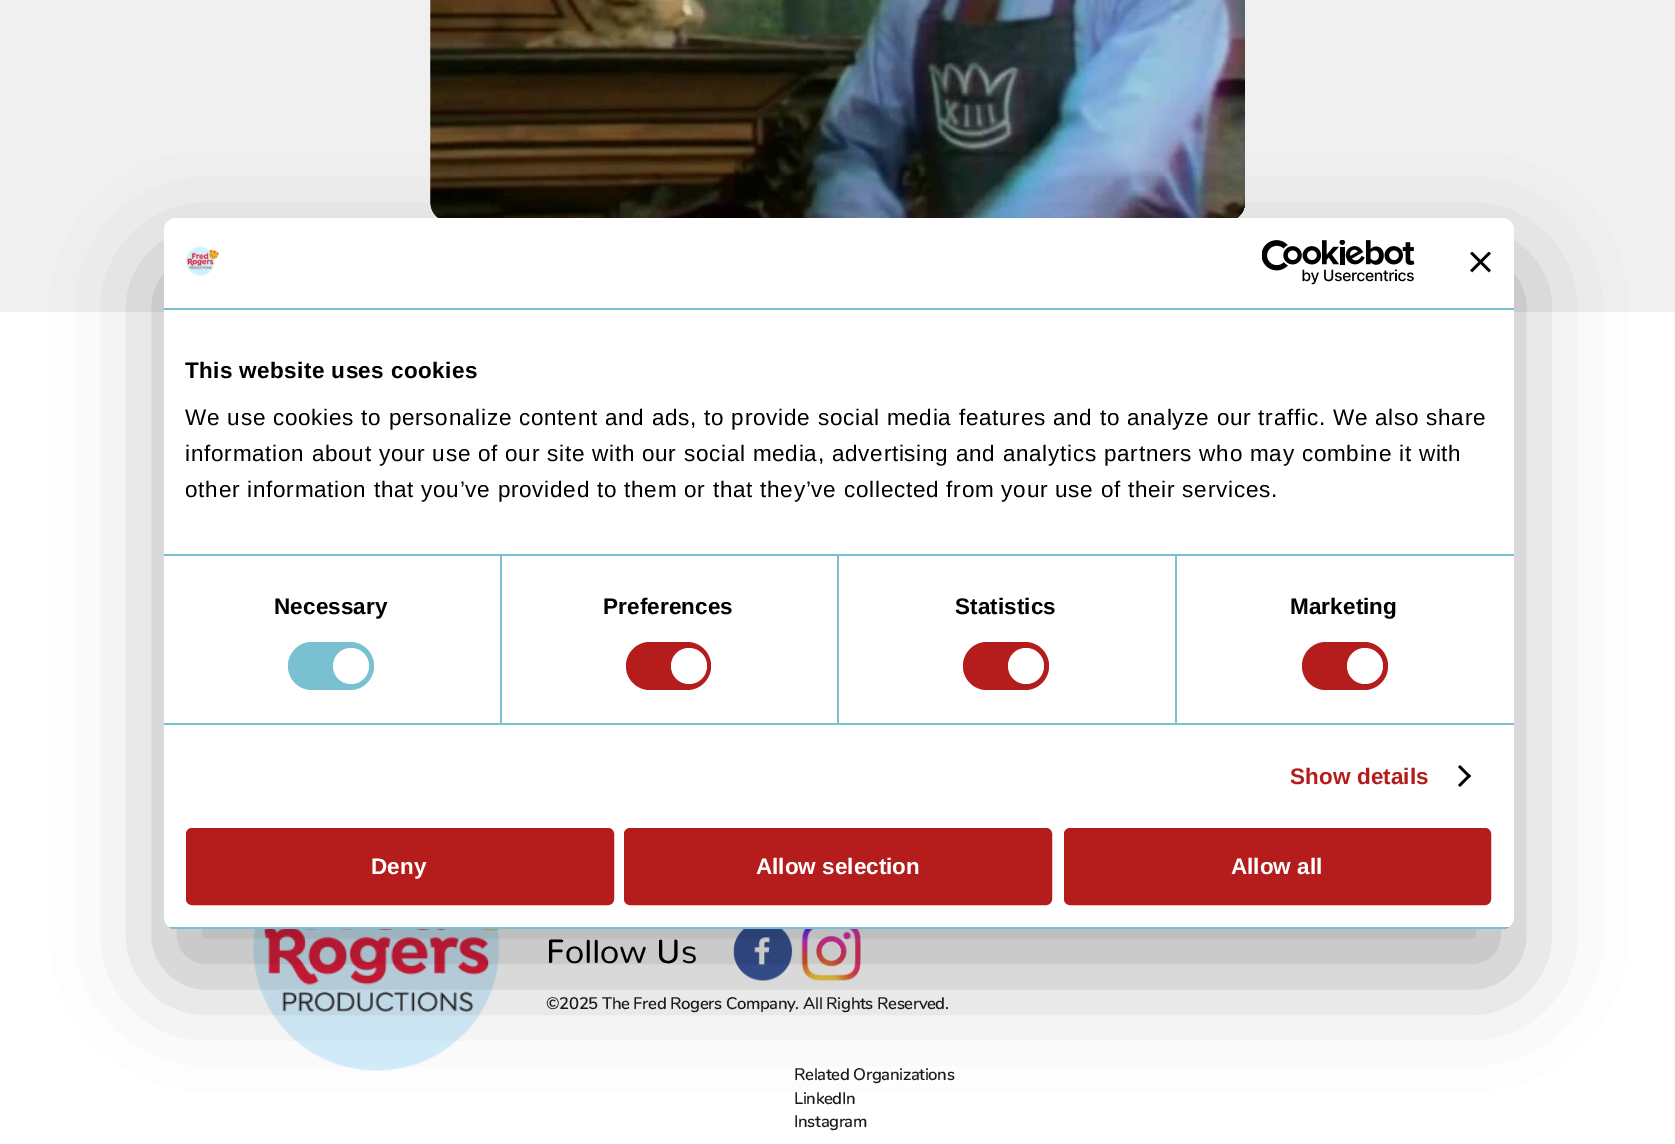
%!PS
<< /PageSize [1675 1144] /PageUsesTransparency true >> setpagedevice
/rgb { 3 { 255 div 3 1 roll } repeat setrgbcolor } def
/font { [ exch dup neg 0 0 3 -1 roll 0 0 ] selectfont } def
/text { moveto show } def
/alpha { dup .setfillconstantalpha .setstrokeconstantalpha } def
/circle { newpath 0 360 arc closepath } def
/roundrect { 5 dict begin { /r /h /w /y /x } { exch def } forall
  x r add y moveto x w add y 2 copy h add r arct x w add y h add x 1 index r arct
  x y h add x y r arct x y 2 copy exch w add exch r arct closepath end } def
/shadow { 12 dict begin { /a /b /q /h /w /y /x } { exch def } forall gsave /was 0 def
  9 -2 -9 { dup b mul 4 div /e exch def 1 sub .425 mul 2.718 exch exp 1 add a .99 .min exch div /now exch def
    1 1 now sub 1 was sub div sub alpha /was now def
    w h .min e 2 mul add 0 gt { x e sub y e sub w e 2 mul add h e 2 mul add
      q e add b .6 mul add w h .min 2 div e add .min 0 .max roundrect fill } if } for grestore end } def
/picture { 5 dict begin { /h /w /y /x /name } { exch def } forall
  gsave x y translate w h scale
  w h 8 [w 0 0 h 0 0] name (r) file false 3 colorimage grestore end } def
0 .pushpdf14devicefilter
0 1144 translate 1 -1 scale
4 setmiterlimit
255 255 255 rgb
0 0 1675 1144 rectfill
240 240 240 rgb
0 0 1675 312 rectfill
(img_01.rgb) 430 0 815 218 picture
(img_02.rgb) 430 0 815 218 picture
(img_06.rgb) 253 929 248 142 picture
(img_07.rgb) 733 929 60 52 picture
(img_08.rgb) 801 929 60 52 picture
0 0 0 rgb
164 266 1350 711 12 51 0.3 shadow
255 255 255 rgb
164 218 1350 711 12 roundrect fill
121 193 209 rgb
164 308 1350 2 rectfill
(img_03.rgb) 186 246 33 30 picture
(img_04.rgb) 1262 240 153 45 picture
(img_05.rgb) 1470 252 21 21 picture
500 555 2 168 rectfill
837 555 2 168 rectfill
1175 555 2 168 rectfill
164 554 1350 2 rectfill
164 723 1350 2 rectfill
288 642 86 48 24 roundrect fill
255 255 255 rgb
351 666 18 circle fill
181 29 29 rgb
626 642 85 48 24 roundrect fill
255 255 255 rgb
689 666 18 circle fill
181 29 29 rgb
963 642 86 48 24 roundrect fill
255 255 255 rgb
1026 666 18 circle fill
181 29 29 rgb
1302 642 86 48 24 roundrect fill
255 255 255 rgb
1365 666 18 circle fill
0 0 0 rgb
1460 765 moveto 11 11 rlineto -2 2 rlineto -11 -11 rlineto closepath fill
1469 774 moveto 2 2 rlineto -11 11 rlineto -2 -2 rlineto closepath fill
gsave
164 218 1350 711 12 roundrect clip newpath
121 193 209 rgb
164 927 1350 2 rectfill
grestore
181 29 29 rgb
187.5 829.5 425 74 4.5 roundrect gsave fill grestore
3 setlinewidth
stroke
625.5 829.5 425 74 4.5 roundrect gsave fill grestore
stroke
1065.5 829.5 424 74 4.5 roundrect gsave fill grestore
stroke
/LiberationSans-Bold 22.5 font
0 0 0 rgb
185 378 moveto 0.4 0 (This website uses cookies) ashow
/LiberationSans-Regular 22.5 font
185 425 moveto 0.75 0 (We use cookies to personalize content and ads, to provide social media features and to analyze our traffic. We also share) ashow
185 461 moveto 0.75 0 (information about your use of our site with our social media, advertising and analytics partners who may combine it with) ashow
185 497 moveto 0.75 0 (other information that you’ve provided to them or that they’ve collected from your use of their services.) ashow
/LiberationSans-Bold 22.5 font
274 614 moveto 0.1 0 (Necessary) ashow
603 614 moveto 0.1 0 (Preferences) ashow
955 614 moveto 0.1 0 (Statistics) ashow
1290 614 moveto 0.1 0 (Marketing) ashow
181 29 29 rgb
1290 784 moveto 0.1 0 (Show details) ashow
255 255 255 rgb
(Deny) 371 874 text
(Allow selection) 756 874 text
(Allow all) 1231 874 text
/Nunito-Regular 33.5 font
0 0 0 rgb
(Follow Us) 546 963 text
/Nunito-SemiBold 16.75 font
26 26 26 rgb
546 1009 moveto -0.4 0 (©2025 The Fred Rogers Company.) ashow
803 1009 moveto -0.4 0 (All Rights Reserved.) ashow
794 1080 moveto -0.4 0 (Related Organizations) ashow
794 1104 moveto -0.4 0 (LinkedIn) ashow
794 1127 moveto -0.4 0 (Instagram) ashow
.poppdf14devicefilter showpage
